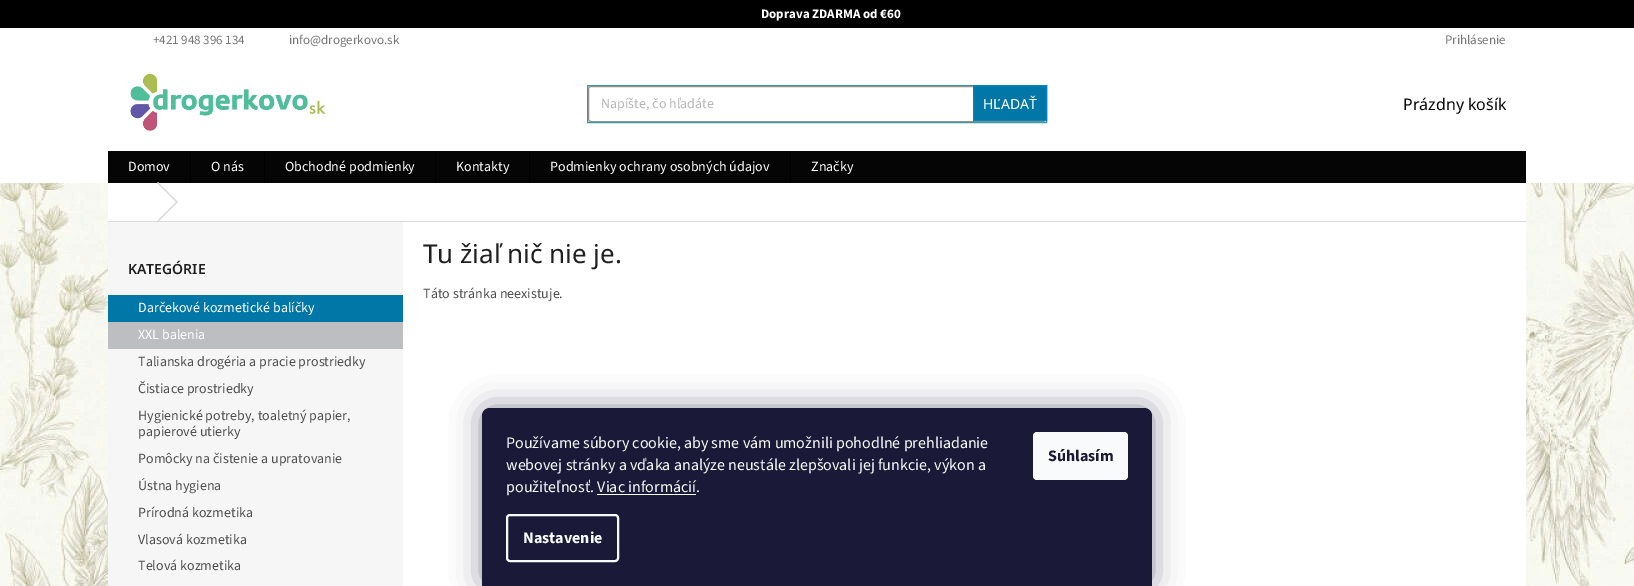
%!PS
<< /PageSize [1634 586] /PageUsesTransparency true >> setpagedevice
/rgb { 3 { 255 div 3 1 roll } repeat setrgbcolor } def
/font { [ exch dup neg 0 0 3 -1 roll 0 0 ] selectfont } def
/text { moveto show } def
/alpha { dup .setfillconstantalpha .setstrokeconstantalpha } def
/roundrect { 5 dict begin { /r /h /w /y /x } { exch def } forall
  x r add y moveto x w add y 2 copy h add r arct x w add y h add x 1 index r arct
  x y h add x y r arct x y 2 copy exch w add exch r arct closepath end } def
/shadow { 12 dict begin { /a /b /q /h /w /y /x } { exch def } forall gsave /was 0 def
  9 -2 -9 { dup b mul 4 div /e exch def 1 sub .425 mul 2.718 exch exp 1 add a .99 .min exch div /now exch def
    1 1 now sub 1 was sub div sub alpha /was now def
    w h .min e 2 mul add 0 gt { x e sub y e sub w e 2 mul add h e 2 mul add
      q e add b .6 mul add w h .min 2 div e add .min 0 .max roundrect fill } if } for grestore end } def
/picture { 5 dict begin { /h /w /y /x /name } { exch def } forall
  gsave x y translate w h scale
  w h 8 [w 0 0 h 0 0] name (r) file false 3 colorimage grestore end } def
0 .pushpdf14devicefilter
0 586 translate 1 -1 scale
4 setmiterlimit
255 255 255 rgb
0 0 1634 586 rectfill
(img_01.rgb) 0 183 1634 403 picture
0 0 0 rgb
0 0 1634 28 rectfill
(img_02.rgb) 130 73 196 58 picture
50 154 157 rgb
587.5 85.5 459 37 rectstroke
145 145 145 rgb
588.5 86.5 457 35 2.5 roundrect stroke
0 119 166 rgb
973.5 85.5 moveto 73 0 rlineto 0 35 rlineto -73 0 rlineto closepath gsave fill grestore
0 136 191 rgb
stroke
5 5 5 rgb
108 151 1418 32 rectfill
0 0 0 rgb
190 151 1 32 rectfill
264 151 1 32 rectfill
435 151 1 32 rectfill
529 151 1 32 rectfill
790 151 1 32 rectfill
255 255 255 rgb
108 183 1418 38 rectfill
218 218 218 rgb
108 221 1418 1 rectfill
157 183 moveto 1 -1 rlineto 20 20 rlineto -1 1 rlineto closepath fill
177 201 moveto 1 1 rlineto -20 20 rlineto -1 -1 rlineto closepath fill
255 255 255 rgb
403 222 1123 364 rectfill
246 246 246 rgb
108 222 295 364 rectfill
0 119 166 rgb
108 295 295 27 rectfill
188 190 192 rgb
108 322 295 27 rectfill
27 25 57 rgb
482 408 670 178 8 15 0.5 shadow
26 25 55 rgb
490 408 moveto 654 0 rlineto 4.5 0 8 3.5 8 8 rcurveto 0 170 rlineto -670 0 rlineto 0 -170 rlineto 0 -4.5 3.5 -8 8 -8 rcurveto closepath fill
248 250 251 rgb
597 494 99 1 rectfill
2 setlinewidth
507 515 111 46 3 roundrect stroke
1033 432 95 48 4 roundrect fill
/SourceSans3-Bold 13 font
255 255 255 rgb
(Doprava ZDARMA od €60) 761 18 text
/SourceSans3-Regular 13 font
118 118 118 rgb
(+421 948 396 134) 153 44 text
(info@drogerkovo.sk) 289 44 text
(Prihlásenie) 1445 44 text
/SourceSans3-Regular 14 font
182 182 182 rgb
(Napíšte, čo hľadáte) 601 108 text
/NotoSans-Regular 14 font
255 255 255 rgb
(HĽADAŤ) 983 109 text
/NotoSans-Regular 16 font
5 5 5 rgb
(Prázdny košík) 1403 110 text
/SourceSans3-Regular 14 font
255 255 255 rgb
(Domov) 128 171 text
(O nás) 211 171 text
(Obchodné podmienky) 285 171 text
(Kontakty) 456 171 text
(Podmienky ochrany osobných údajov) 550 171 text
(Značky) 811 171 text
/NotoSans-SemiBold 14 font
31 31 31 rgb
(KATEGÓRIE) 128 274 text
/SourceSans3-Regular 14 font
255 255 255 rgb
(Darčekové kozmetické balíčky) 138 312 text
(XXL balenia) 138 339 text
77 77 77 rgb
(Talianska drogéria a pracie prostriedky) 138 366 text
(Čistiace prostriedky) 138 393 text
(Hygienické potreby, toaletný papier,) 138 420 text
(papierové utierky) 138 436 text
(Pomôcky na čistenie a upratovanie) 138 463 text
(Ústna hygiena) 138 490 text
(Prírodná kozmetika) 138 517 text
(Vlasová kozmetika) 138 544 text
(Telová kozmetika) 138 570 text
/NotoSans-Regular 26 font
31 31 31 rgb
(Tu žiaľ nič nie je.) 423 263 text
/SourceSans3-Regular 14 font
77 77 77 rgb
(Táto stránka neexistuje.) 423 298 text
/SourceSans3-Regular 16 font
248 250 251 rgb
(Používame súbory cookie, aby sme vám umožnili pohodlné prehliadanie) 506 448 text
(webovej stránky a vďaka analýze neustále zlepšovali jej funkcie, výkon a) 506 470 text
(použiteľnosť. Viac informácií.) 506 492 text
/SourceSans3-Bold 16 font
(Nastavenie) 523 543 text
26 25 55 rgb
(Súhlasím) 1048 461 text
.poppdf14devicefilter showpage
